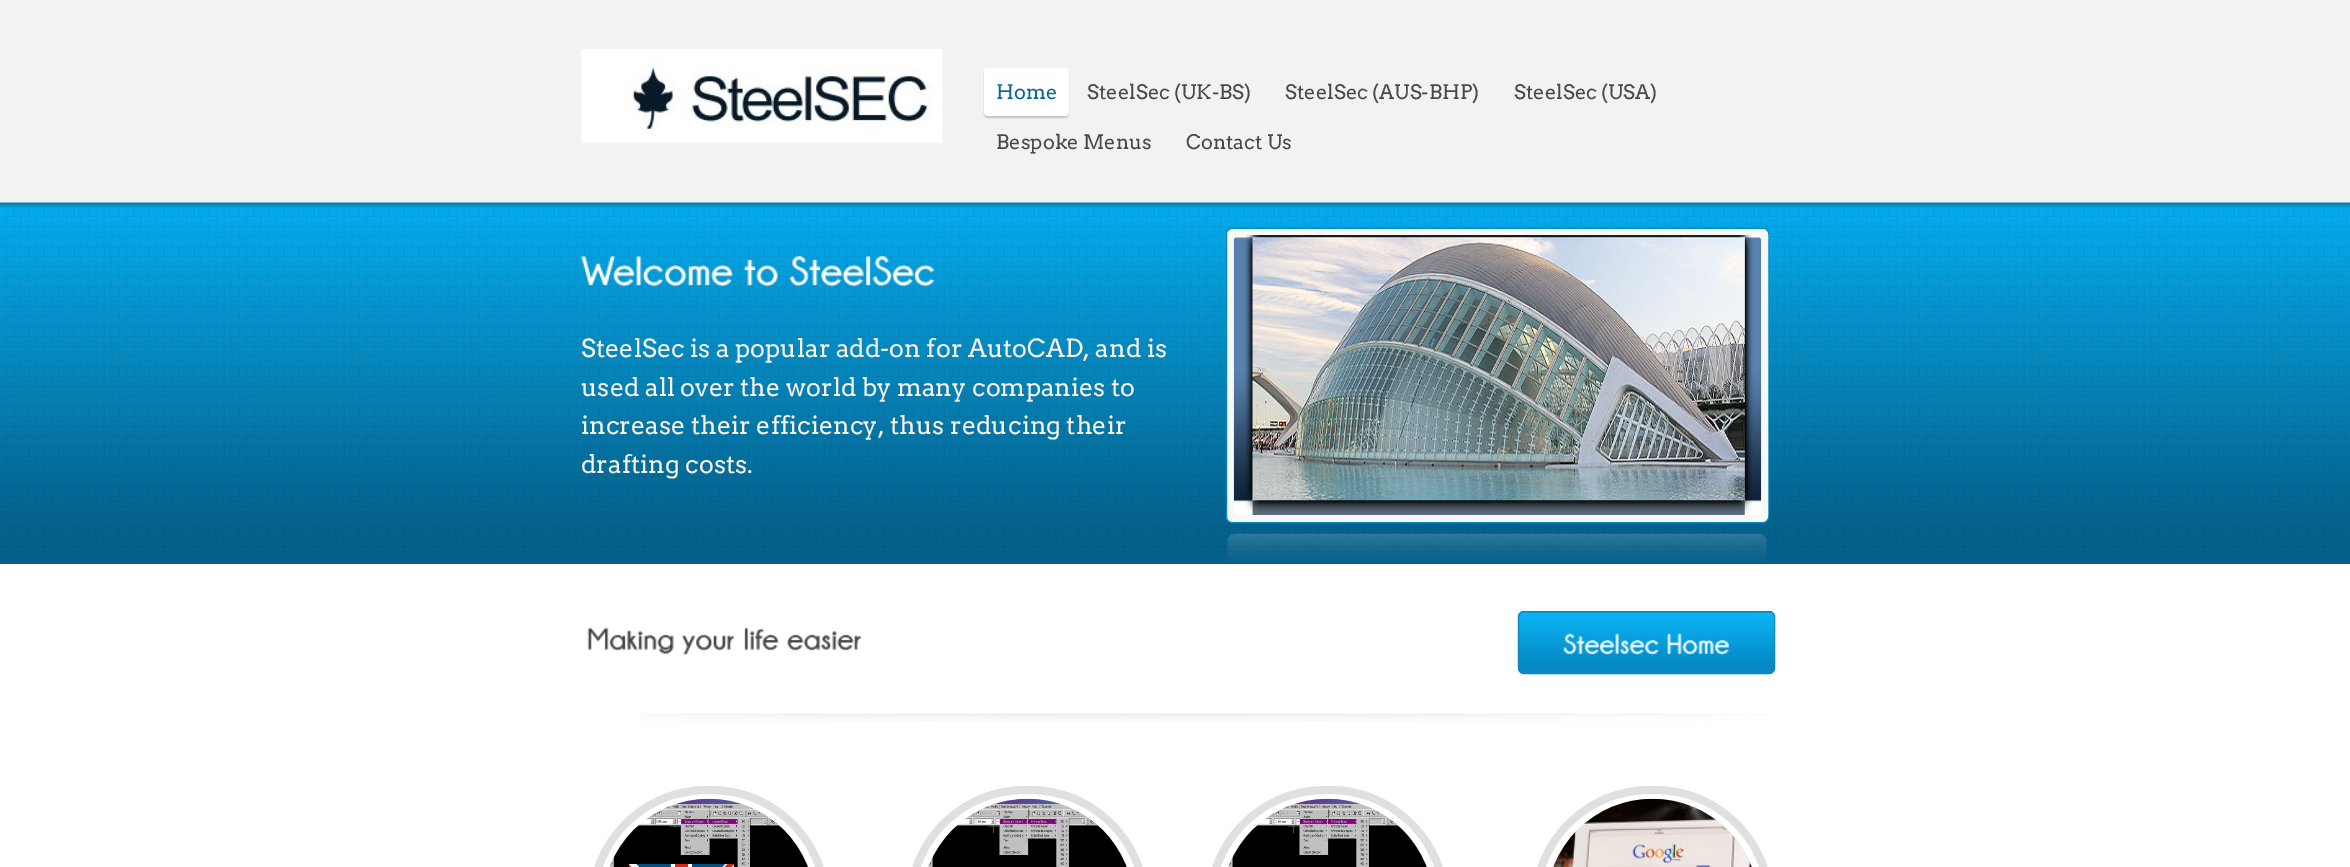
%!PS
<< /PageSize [2350 867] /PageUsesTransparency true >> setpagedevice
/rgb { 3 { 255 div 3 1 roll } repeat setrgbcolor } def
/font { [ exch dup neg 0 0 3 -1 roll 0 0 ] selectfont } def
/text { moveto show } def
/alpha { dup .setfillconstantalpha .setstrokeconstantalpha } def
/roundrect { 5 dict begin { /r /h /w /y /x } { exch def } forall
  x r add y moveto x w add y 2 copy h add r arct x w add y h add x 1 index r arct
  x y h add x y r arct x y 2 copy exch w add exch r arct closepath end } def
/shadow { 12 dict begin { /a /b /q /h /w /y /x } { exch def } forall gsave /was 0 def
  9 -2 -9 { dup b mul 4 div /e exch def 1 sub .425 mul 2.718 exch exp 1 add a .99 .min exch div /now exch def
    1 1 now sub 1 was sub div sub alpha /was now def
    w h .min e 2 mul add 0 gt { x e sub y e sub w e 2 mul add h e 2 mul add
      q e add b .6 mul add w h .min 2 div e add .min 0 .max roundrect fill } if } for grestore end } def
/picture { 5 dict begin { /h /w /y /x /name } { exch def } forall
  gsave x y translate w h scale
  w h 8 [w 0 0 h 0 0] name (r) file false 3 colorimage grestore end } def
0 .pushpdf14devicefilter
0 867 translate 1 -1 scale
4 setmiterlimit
255 255 255 rgb
0 0 2350 867 rectfill
241 243 242 rgb
0 0 2350 203 rectfill
(img_01.rgb) 581 49 362 94 picture
197 198 197 rgb
984 69 85 49 4 0.5 1 shadow
255 255 255 rgb
984 68 85 48 4 roundrect fill
4 95 138 rgb
0 551 2350 13 rectfill
(img_02.rgb) 0 202 2350 350 picture
(img_03.rgb) 581 256 152 31 picture
(img_04.rgb) 743 259 35 28 picture
(img_05.rgb) 789 256 146 31 picture
247 249 248 rgb
1226.5 228.5 542 294 5.5 roundrect gsave fill grestore
3 137 190 rgb
stroke
247 249 248 rgb
6 setlinewidth
1231 232 534 286 3 roundrect stroke
(img_06.rgb) 1233 235 529 280 picture
(img_07.rgb) 1227 533 540 30 picture
(img_08.rgb) 641 713 1128 9 picture
(img_09.rgb) 587 627 87 27 picture
(img_10.rgb) 682 634 53 21 picture
(img_11.rgb) 744 627 35 24 picture
(img_12.rgb) 787 631 75 20 picture
5 138 198 rgb
1518 611 257 63 6 roundrect fill
(img_13.rgb) 1517 612 258 55 picture
15 134 179 rgb
1 setlinewidth
1518.5 611.5 256 62 5.5 roundrect stroke
(img_14.rgb) 1563 633 96 22 picture
(img_15.rgb) 1667 633 63 22 picture
225 224 224 rgb
8 setlinewidth
592 790 234 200 115 roundrect stroke
603 799 212 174 106 roundrect fill
(img_16.rgb) 609 798 199 69 picture
910 790 235 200 115 roundrect stroke
921 799 213 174 106 roundrect fill
(img_17.rgb) 928 798 199 69 picture
1210 790 235 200 115 roundrect stroke
1221 799 213 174 106 roundrect fill
(img_18.rgb) 1228 798 199 69 picture
1535 790 235 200 115 roundrect stroke
1546 799 213 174 106 roundrect fill
(img_19.rgb) 1553 798 199 69 picture
/Arvo-Regular 20 font
9 105 147 rgb
(Home) 996 99 text
72 72 72 rgb
(SteelSec \(UK-BS\)) 1087 99 text
(SteelSec \(AUS-BHP\)) 1285 99 text
(SteelSec \(USA\)) 1514 99 text
(Bespoke Menus) 996 149 text
(Contact Us) 1186 149 text
/Arvo-Regular 25 font
252 242 230 rgb
(SteelSec is a popular add-on for AutoCAD, and is) 581 357 text
(used all over the world by many companies to) 581 396 text
(increase their efficiency, thus reducing their) 581 434 text
(drafting costs.) 581 473 text
.poppdf14devicefilter showpage
